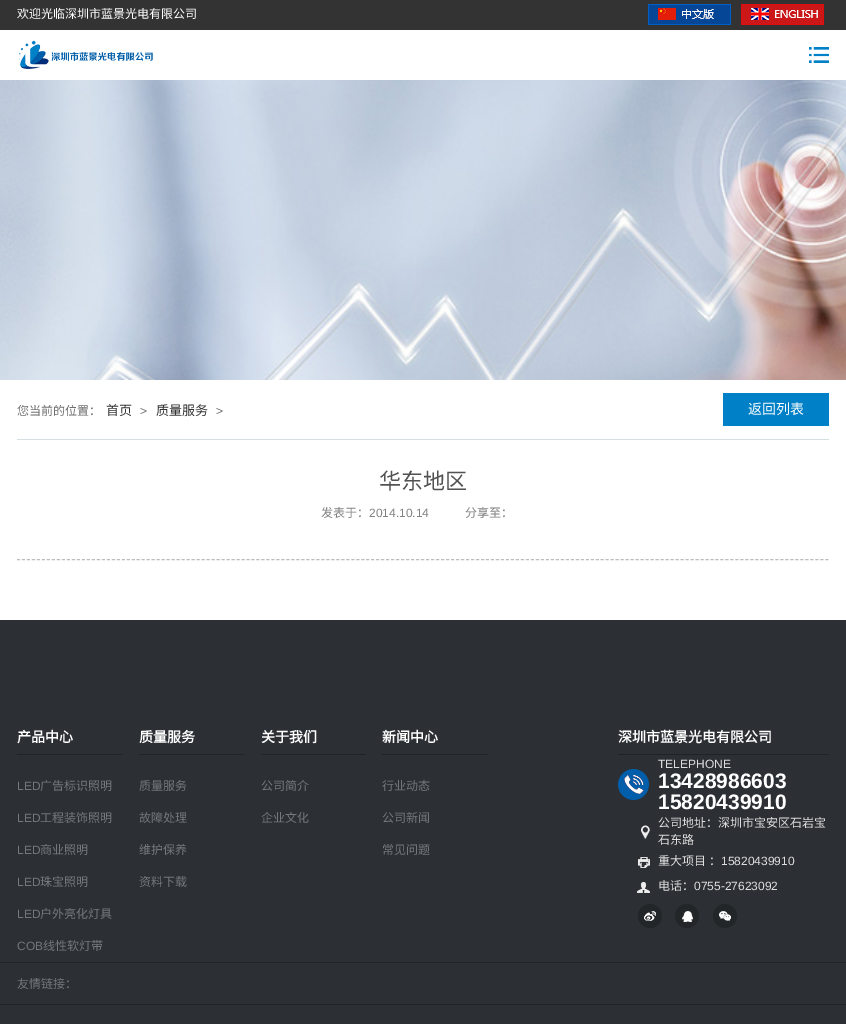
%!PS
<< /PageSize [846 1024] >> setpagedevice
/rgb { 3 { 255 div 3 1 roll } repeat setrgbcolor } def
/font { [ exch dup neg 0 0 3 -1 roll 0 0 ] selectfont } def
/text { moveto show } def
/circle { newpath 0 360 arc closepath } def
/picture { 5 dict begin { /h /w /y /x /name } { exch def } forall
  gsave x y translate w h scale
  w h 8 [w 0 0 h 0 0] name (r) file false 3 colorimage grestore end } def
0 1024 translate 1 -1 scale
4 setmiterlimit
255 255 255 rgb
0 0 846 1024 rectfill
51 51 51 rgb
0 0 846 30 rectfill
(img_01.rgb) 648 4 83 21 picture
(img_02.rgb) 741 4 83 21 picture
(img_03.rgb) 19 40 134 29 picture
(img_04.rgb) 809 47 20 16 picture
(img_05.rgb) 0 80 846 300 picture
212 224 226 rgb
17 439 812 1 rectfill
0 129 199 rgb
723 393 106 33 rectfill
188 188 188 rgb
[3 1.99] 0 setdash
17 559.5 moveto 812 0 rlineto stroke
44 48 53 rgb
0 620 846 404 rectfill
33 36 39 rgb
17 754 106 1 rectfill
139 754 105 1 rectfill
261 754 105 1 rectfill
382 754 106 1 rectfill
618 754 211 1 rectfill
(img_06.rgb) 618 769 31 31 picture
(img_07.rgb) 641 825 9 14 picture
(img_08.rgb) 638 857 12 11 picture
(img_09.rgb) 637 882 13 11 picture
34 38 41 rgb
650 916 12 circle fill
(img_10.rgb) 644 911 12 10 picture
687 916 12 circle fill
(img_11.rgb) 682 911 11 11 picture
725 916 12 circle fill
(img_12.rgb) 719 911 12 10 picture
33 36 39 rgb
0 962 846 1 rectfill
0 1004 846 1 rectfill
/NotoSansCJKSC-Regular 12 font
255 255 255 rgb
(欢迎光临深圳市蓝景光电有限公司) 17 18 text
111 111 111 rgb
(您当前的位置：) 17 415 text
/NotoSansCJKSC-Regular 13 font
51 51 51 rgb
(首页) 106 415 text
/LiberationSans-Regular 12 font
111 111 111 rgb
(>) 140 415 text
/NotoSansCJKSC-Regular 13 font
51 51 51 rgb
(质量服务) 156 415 text
/LiberationSans-Regular 12 font
111 111 111 rgb
(>) 216 415 text
/NotoSansCJKSC-Regular 14 font
255 255 255 rgb
(返回列表) 748 414 text
/NotoSansCJKSC-Regular 22 font
82 82 82 rgb
(华东地区) 379 489 text
/NotoSansCJKSC-Regular 12 font
129 129 129 rgb
(发表于：) 321 517 text
/LiberationSans-Regular 12 font
(2014.10.14) 369 517 text
/NotoSansCJKSC-Regular 12 font
(分享至：) 465 517 text
/NotoSansCJKSC-Bold 14 font
255 255 255 rgb
(产品中心) 17 742 text
/LiberationSans-Regular 12 font
116 120 124 rgb
(LED) 17 790 text
/NotoSansCJKSC-Regular 12 font
(广告标识照明) 40 790 text
/LiberationSans-Regular 12 font
(LED) 17 822 text
/NotoSansCJKSC-Regular 12 font
(工程装饰照明) 40 822 text
/LiberationSans-Regular 12 font
(LED) 17 854 text
/NotoSansCJKSC-Regular 12 font
(商业照明) 40 854 text
/LiberationSans-Regular 12 font
(LED) 17 886 text
/NotoSansCJKSC-Regular 12 font
(珠宝照明) 40 886 text
/LiberationSans-Regular 12 font
(LED) 17 918 text
/NotoSansCJKSC-Regular 12 font
(户外亮化灯具) 40 918 text
/LiberationSans-Regular 12 font
(COB) 17 950 text
/NotoSansCJKSC-Regular 12 font
(线性软灯带) 43 950 text
/NotoSansCJKSC-Bold 14 font
255 255 255 rgb
(质量服务) 139 742 text
/NotoSansCJKSC-Regular 12 font
116 120 124 rgb
(质量服务) 139 790 text
(故障处理) 139 822 text
(维护保养) 139 854 text
(资料下载) 139 886 text
/NotoSansCJKSC-Bold 14 font
255 255 255 rgb
(关于我们) 261 742 text
/NotoSansCJKSC-Regular 12 font
116 120 124 rgb
(公司简介) 261 790 text
(企业文化) 261 822 text
/NotoSansCJKSC-Bold 14 font
255 255 255 rgb
(新闻中心) 382 742 text
/NotoSansCJKSC-Regular 12 font
116 120 124 rgb
(行业动态) 382 790 text
(公司新闻) 382 822 text
(常见问题) 382 854 text
/NotoSansCJKSC-Bold 14 font
255 255 255 rgb
(深圳市蓝景光电有限公司) 618 742 text
/LiberationSans-Regular 12 font
221 221 221 rgb
(TELEPHONE) 658 768 text
/LiberationSans-Bold 21 font
255 255 255 rgb
(13428986603) 658 788 text
(15820439910) 658 809 text
/NotoSansCJKSC-Regular 12 font
221 221 221 rgb
(公司地址：深圳市宝安区石岩宝) 658 827 text
(石东路) 658 844 text
(重大项目) 658 865 text
(：) 709 865 text
/LiberationSans-Regular 12 font
(15820439910) 721 865 text
/NotoSansCJKSC-Regular 12 font
(电话：) 658 890 text
/LiberationSans-Regular 12 font
(0755-27623092) 694 890 text
/NotoSansCJKSC-Regular 12 font
116 120 124 rgb
(友情链接：) 17 988 text
showpage
